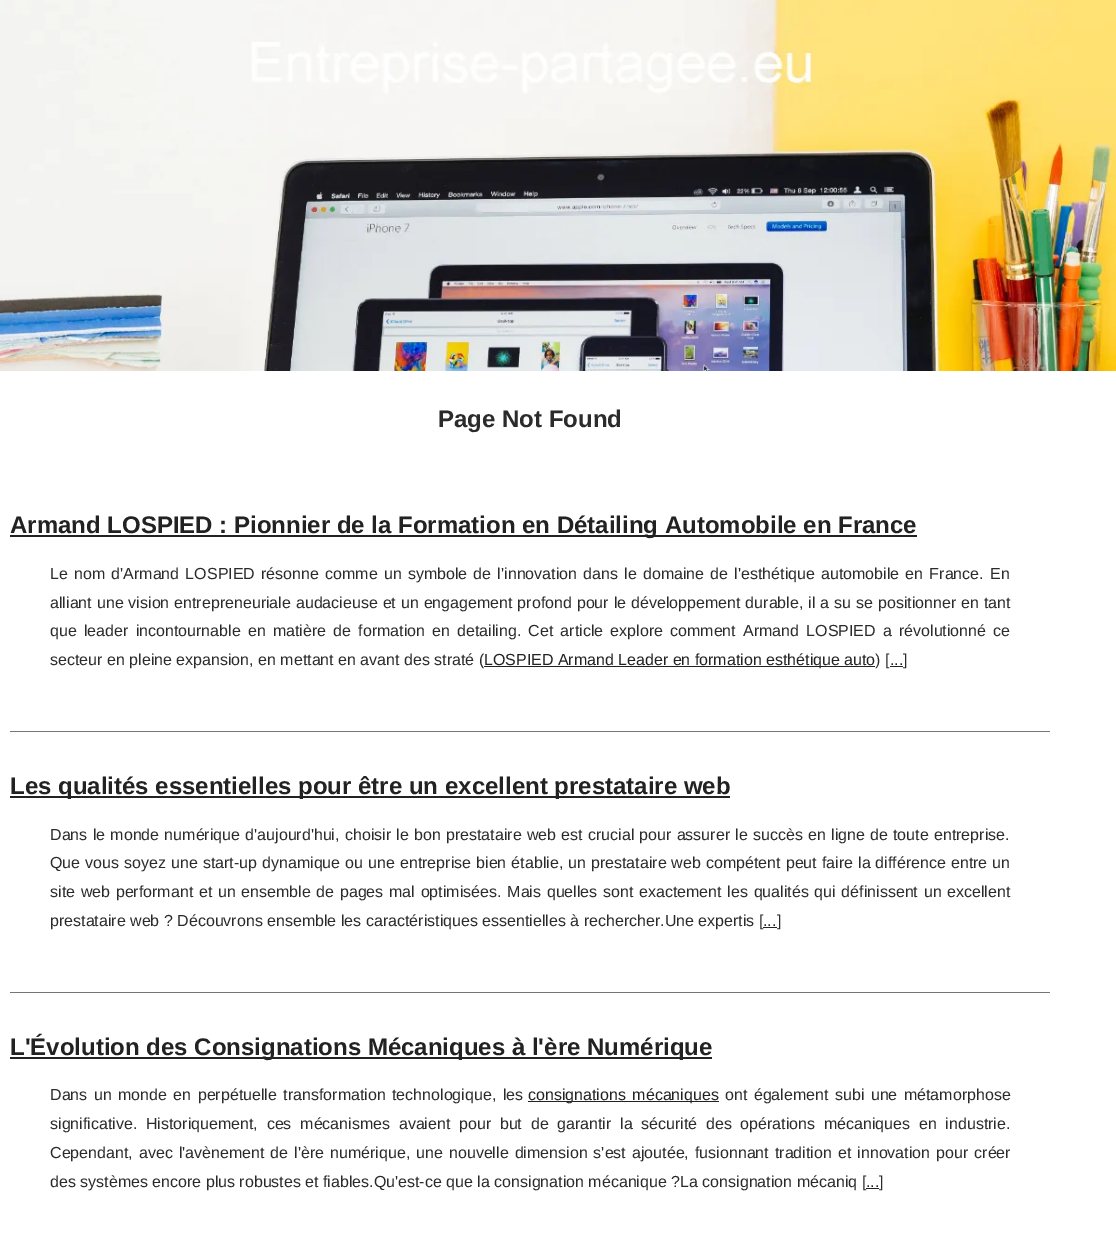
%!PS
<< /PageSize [1116 1255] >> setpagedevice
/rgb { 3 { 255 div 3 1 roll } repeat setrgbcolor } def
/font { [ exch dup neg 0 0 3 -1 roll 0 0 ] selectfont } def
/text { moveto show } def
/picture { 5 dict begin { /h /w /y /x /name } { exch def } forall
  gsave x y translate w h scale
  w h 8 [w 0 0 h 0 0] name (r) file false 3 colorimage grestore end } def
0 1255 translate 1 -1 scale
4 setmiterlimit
255 255 255 rgb
0 0 1116 1255 rectfill
(img_01.rgb) 0 0 1116 371 picture
34 34 34 rgb
10 535 907 2 rectfill
484 666 391 1 rectfill
890 666 13 1 rectfill
117 117 117 rgb
10 731 1040 1 rectfill
34 34 34 rgb
10 796 720 2 rectfill
117 117 117 rgb
10 992 1040 1 rectfill
34 34 34 rgb
10 1057 702 2 rectfill
528 1101 191 1 rectfill
866 1188 13 1 rectfill
/LiberationSans-Bold 24 font
43 43 43 rgb
(Page Not Found) 438 427 text
34 34 34 rgb
(Armand LOSPIED : Pionnier de la Formation en Détailing Automobile en France) 10 533 text
/LiberationSans-Regular 16 font
43 43 43 rgb
50 579 moveto 1.75 0 32 (Le nom d'Armand LOSPIED résonne comme un symbole de l'innovation dans le domaine de l'esthétique automobile en France. En) widthshow
50 608 moveto 0.5 0 32 (alliant une vision entrepreneuriale audacieuse et un engagement profond pour le développement durable, il a su se positionner en tant) widthshow
50 636 moveto 2.75 0 32 (que leader incontournable en matière de formation en detailing. Cet article explore comment Armand LOSPIED a révolutionné ce) widthshow
(secteur en pleine expansion, en mettant en avant des straté \() 50 665 text
34 34 34 rgb
(LOSPIED Armand Leader en formation esthétique auto) 484 665 text
43 43 43 rgb
(\) [) 875 665 text
34 34 34 rgb
(...) 890 665 text
43 43 43 rgb
(]) 903 665 text
/LiberationSans-Bold 24 font
34 34 34 rgb
(Les qualités essentielles pour être un excellent prestataire web) 10 794 text
/LiberationSans-Regular 16 font
43 43 43 rgb
50 840 moveto 0.8 0 32 (Dans le monde numérique d'aujourd'hui, choisir le bon prestataire web est crucial pour assurer le succès en ligne de toute entreprise.) widthshow
50 868 moveto 0.6 0 32 (Que vous soyez une start-up dynamique ou une entreprise bien établie, un prestataire web compétent peut faire la différence entre un) widthshow
50 897 moveto 1.25 0 32 (site web performant et un ensemble de pages mal optimisées. Mais quelles sont exactement les qualités qui définissent un excellent) widthshow
(prestataire web ? Découvrons ensemble les caractéristiques essentielles à rechercher.Une expertis [) 50 926 text
34 34 34 rgb
(...) 763 926 text
763 927 14 1 rectfill
43 43 43 rgb
(]) 777 926 text
/LiberationSans-Bold 24 font
34 34 34 rgb
(L'Évolution des Consignations Mécaniques à l'ère Numérique) 10 1055 text
/LiberationSans-Regular 16 font
43 43 43 rgb
50 1100 moveto 2 0 32 (Dans un monde en perpétuelle transformation technologique, les) widthshow
34 34 34 rgb
528 1100 moveto 2 0 32 (consignations mécaniques) widthshow
43 43 43 rgb
725 1100 moveto 2 0 32 (ont également subi une métamorphose) widthshow
50 1129 moveto 4.25 0 32 (significative. Historiquement, ces mécanismes avaient pour but de garantir la sécurité des opérations mécaniques en industrie.) widthshow
50 1158 moveto 1.6 0 32 (Cependant, avec l'avènement de l'ère numérique, une nouvelle dimension s'est ajoutée, fusionnant tradition et innovation pour créer) widthshow
(des systèmes encore plus robustes et fiables.Qu'est-ce que la consignation mécanique ?La consignation mécaniq [) 50 1187 text
34 34 34 rgb
(...) 866 1187 text
43 43 43 rgb
(]) 879 1187 text
showpage
